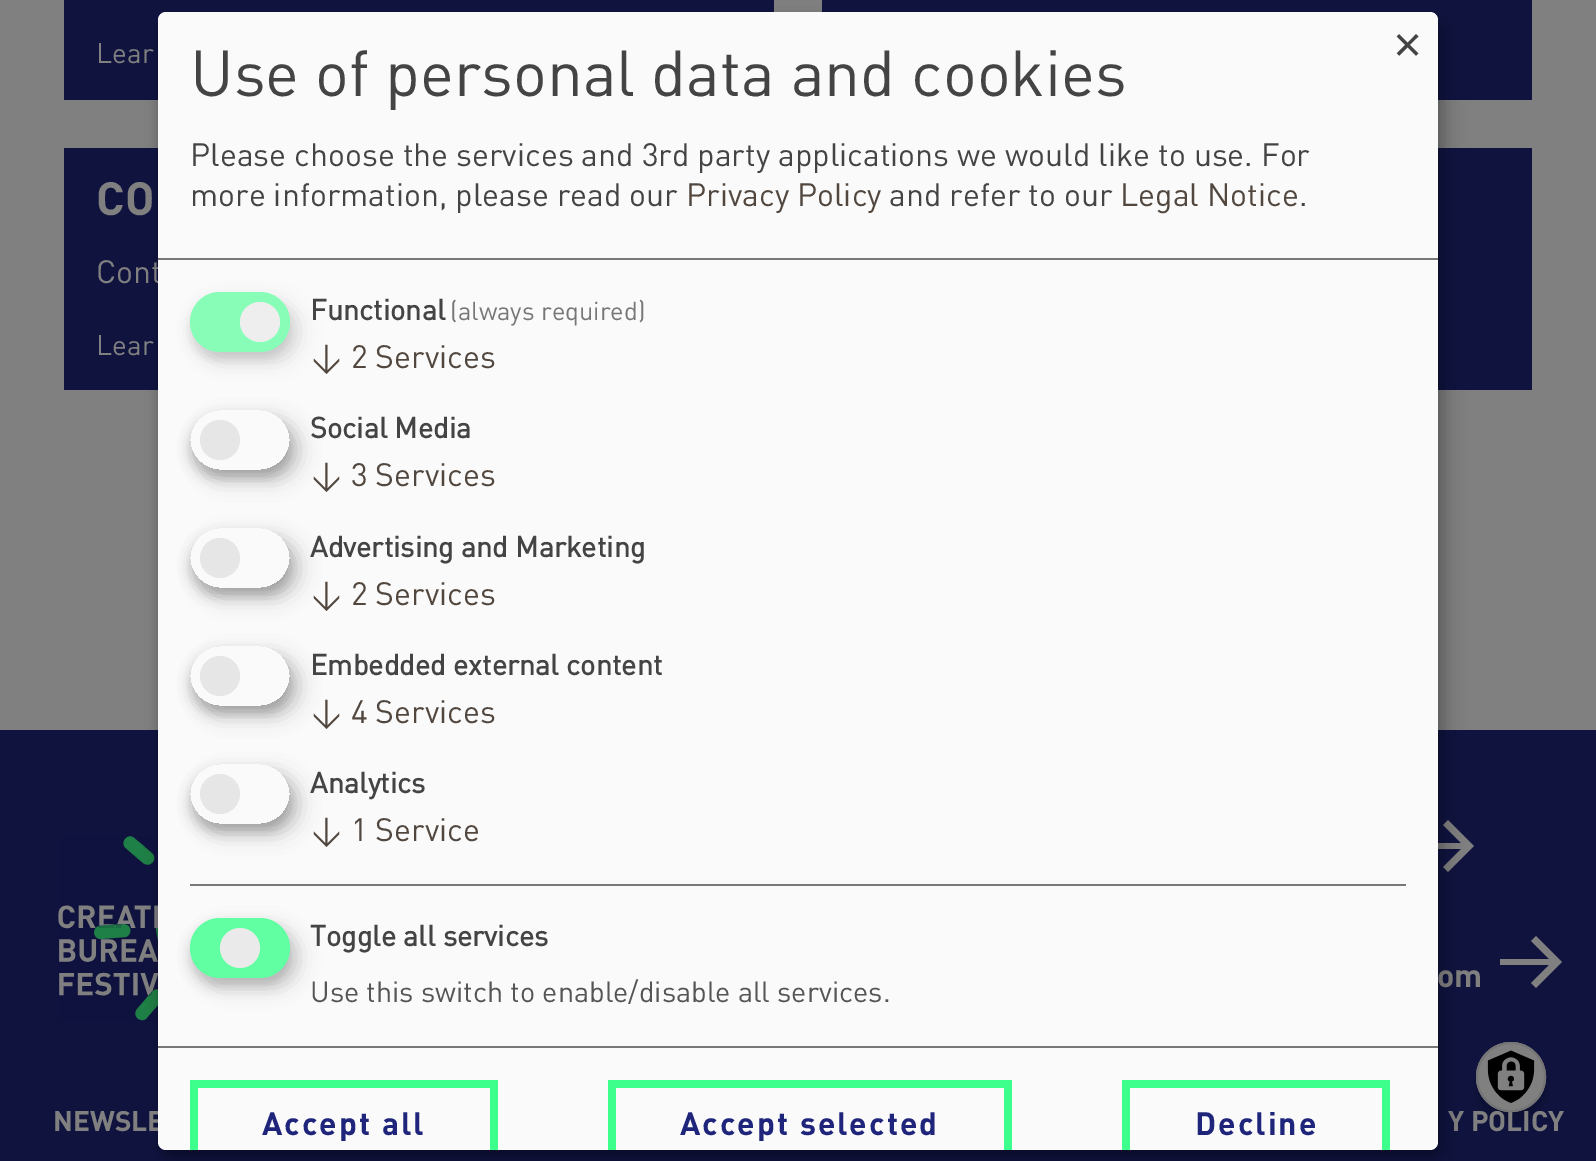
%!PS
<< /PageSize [1596 1161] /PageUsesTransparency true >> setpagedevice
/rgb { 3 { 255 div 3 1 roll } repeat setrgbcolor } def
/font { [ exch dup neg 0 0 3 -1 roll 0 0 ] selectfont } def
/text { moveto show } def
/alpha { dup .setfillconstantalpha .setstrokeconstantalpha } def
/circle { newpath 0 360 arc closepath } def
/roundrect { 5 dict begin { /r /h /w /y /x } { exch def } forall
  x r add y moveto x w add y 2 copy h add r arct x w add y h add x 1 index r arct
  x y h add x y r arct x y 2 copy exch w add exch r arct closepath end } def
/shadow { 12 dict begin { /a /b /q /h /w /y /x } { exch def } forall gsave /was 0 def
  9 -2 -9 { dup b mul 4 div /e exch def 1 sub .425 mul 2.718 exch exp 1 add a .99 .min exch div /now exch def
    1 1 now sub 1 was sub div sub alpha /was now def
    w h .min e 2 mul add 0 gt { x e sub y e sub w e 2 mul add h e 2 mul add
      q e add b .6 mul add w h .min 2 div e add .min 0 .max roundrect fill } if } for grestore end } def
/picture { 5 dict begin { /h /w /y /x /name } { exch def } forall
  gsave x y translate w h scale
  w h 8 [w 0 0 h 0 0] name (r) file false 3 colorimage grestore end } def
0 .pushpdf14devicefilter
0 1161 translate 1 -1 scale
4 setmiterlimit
128 128 128 rgb
0 0 1596 1161 rectfill
15 19 62 rgb
64 0 710 100 rectfill
822 0 710 100 rectfill
64 148 1468 242 rectfill
0 730 1596 431 rectfill
(img_01.rgb) 58 836 100 185 picture
128 128 128 rgb
1448 820 moveto -5 5 rlineto 18 18 rlineto -49 0 rlineto 0 6 rlineto 49 0 rlineto -18 18 rlineto 5 5 rlineto 26 -26 rlineto closepath fill
0 0 0 rgb
158 20 1280 1138 8 6 0.2 shadow
128 128 128 rgb
1536 936 moveto -5 5 rlineto 18 18 rlineto -49 0 rlineto 0 6 rlineto 49 0 rlineto -18 18 rlineto 5 5 rlineto 26 -26 rlineto closepath fill
0 0 0 rgb
1476 1052 70 70 35 5 0.2 shadow
128 128 128 rgb
1511 1077 35 circle fill
(img_02.rgb) 1487 1050 48 53 picture
/DIN-Regular 28 font
(Lear) 96 63 text
/DIN-Bold 46 font
(CO) 96 215 text
/DIN-Regular 32 font
(Cont) 96 283 text
/DIN-Regular 28 font
(Lear) 96 355 text
/DIN-Bold 32 font
(om) 1437 987 text
/DIN-Bold 28 font
(NEWSLE) 53 1131 text
(Y POLICY) 1448 1131 text
117 117 117 rgb
2 setlinewidth
1511 1077 34 circle stroke
0 0 0 rgb
168 22 1280 1138 8 10 0.19 shadow
250 250 250 rgb
158 12 1280 1138 8 roundrect fill
/DIN-Regular 56 font
68 68 68 rgb
(×) 1393 60 text
50 50 50 rgb
190 926 100 60 30 6 0.2 shadow
0 0 0 rgb
200 928 100 60 30 10 0.15 shadow
98 254 162 rgb
190 918 100 60 30 roundrect fill
234 234 234 rgb
240 948 20 circle fill
/DIN-Regular 28.8 font
85 85 85 rgb
(Use this switch to enable/disable all services.) 310 1002 text
/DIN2-Bold 28.8 font
68 68 68 rgb
(Toggle all services) 310 946 text
119 119 119 rgb
190 884 1216 2 rectfill
gsave
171 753 moveto 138 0 rlineto 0 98 rlineto -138 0 rlineto closepath 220 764 moveto 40 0 rlineto 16.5 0 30 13.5 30 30 rcurveto 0 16.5 -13.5 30 -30 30 rcurveto -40 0 rlineto -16.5 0 -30 -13.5 -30 -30 rcurveto 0 -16.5 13.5 -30 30 -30 rcurveto closepath eoclip newpath
0 0 0 rgb
190 772 100 60 30 6 0.2 shadow
grestore
gsave
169 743 moveto 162 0 rlineto 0 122 rlineto -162 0 rlineto closepath 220 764 moveto 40 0 rlineto 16.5 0 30 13.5 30 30 rcurveto 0 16.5 -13.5 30 -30 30 rcurveto -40 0 rlineto -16.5 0 -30 -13.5 -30 -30 rcurveto 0 -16.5 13.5 -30 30 -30 rcurveto closepath eoclip newpath
0 0 0 rgb
200 774 100 60 30 10 0.19 shadow
grestore
230 230 230 rgb
220 794 20 circle fill
/DIN-Regular 32 font
81 71 63 rgb
(↓ 1 Service) 310 841 text
/DIN2-Bold 28.8 font
68 68 68 rgb
(Analytics) 310 793 text
gsave
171 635 moveto 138 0 rlineto 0 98 rlineto -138 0 rlineto closepath 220 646 moveto 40 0 rlineto 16.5 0 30 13.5 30 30 rcurveto 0 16.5 -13.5 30 -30 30 rcurveto -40 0 rlineto -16.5 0 -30 -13.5 -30 -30 rcurveto 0 -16.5 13.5 -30 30 -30 rcurveto closepath eoclip newpath
0 0 0 rgb
190 654 100 60 30 6 0.2 shadow
grestore
gsave
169 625 moveto 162 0 rlineto 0 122 rlineto -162 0 rlineto closepath 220 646 moveto 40 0 rlineto 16.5 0 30 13.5 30 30 rcurveto 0 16.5 -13.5 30 -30 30 rcurveto -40 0 rlineto -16.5 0 -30 -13.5 -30 -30 rcurveto 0 -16.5 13.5 -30 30 -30 rcurveto closepath eoclip newpath
0 0 0 rgb
200 656 100 60 30 10 0.19 shadow
grestore
230 230 230 rgb
220 676 20 circle fill
/DIN-Regular 32 font
81 71 63 rgb
(↓ 4 Services) 310 723 text
/DIN2-Bold 28.8 font
68 68 68 rgb
(Embedded external content) 310 675 text
gsave
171 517 moveto 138 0 rlineto 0 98 rlineto -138 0 rlineto closepath 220 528 moveto 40 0 rlineto 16.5 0 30 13.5 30 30 rcurveto 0 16.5 -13.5 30 -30 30 rcurveto -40 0 rlineto -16.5 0 -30 -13.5 -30 -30 rcurveto 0 -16.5 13.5 -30 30 -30 rcurveto closepath eoclip newpath
0 0 0 rgb
190 536 100 60 30 6 0.2 shadow
grestore
gsave
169 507 moveto 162 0 rlineto 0 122 rlineto -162 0 rlineto closepath 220 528 moveto 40 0 rlineto 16.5 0 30 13.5 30 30 rcurveto 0 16.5 -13.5 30 -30 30 rcurveto -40 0 rlineto -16.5 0 -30 -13.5 -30 -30 rcurveto 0 -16.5 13.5 -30 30 -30 rcurveto closepath eoclip newpath
0 0 0 rgb
200 538 100 60 30 10 0.19 shadow
grestore
230 230 230 rgb
220 558 20 circle fill
/DIN-Regular 32 font
81 71 63 rgb
(↓ 2 Services) 310 605 text
/DIN2-Bold 28.8 font
68 68 68 rgb
(Advertising and Marketing) 310 557 text
gsave
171 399 moveto 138 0 rlineto 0 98 rlineto -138 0 rlineto closepath 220 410 moveto 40 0 rlineto 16.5 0 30 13.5 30 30 rcurveto 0 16.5 -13.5 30 -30 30 rcurveto -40 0 rlineto -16.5 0 -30 -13.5 -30 -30 rcurveto 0 -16.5 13.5 -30 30 -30 rcurveto closepath eoclip newpath
0 0 0 rgb
190 418 100 60 30 6 0.2 shadow
grestore
gsave
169 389 moveto 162 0 rlineto 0 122 rlineto -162 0 rlineto closepath 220 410 moveto 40 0 rlineto 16.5 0 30 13.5 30 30 rcurveto 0 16.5 -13.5 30 -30 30 rcurveto -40 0 rlineto -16.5 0 -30 -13.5 -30 -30 rcurveto 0 -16.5 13.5 -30 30 -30 rcurveto closepath eoclip newpath
0 0 0 rgb
200 420 100 60 30 10 0.19 shadow
grestore
230 230 230 rgb
220 440 20 circle fill
/DIN-Regular 32 font
81 71 63 rgb
(↓ 3 Services) 310 486 text
/DIN2-Bold 28.8 font
68 68 68 rgb
(Social Media) 310 438 text
100 100 100 rgb
190 300 100 60 30 6 0.2 shadow
0 0 0 rgb
200 302 100 60 30 10 0.11 shadow
136 253 184 rgb
190 292 100 60 30 roundrect fill
238 238 238 rgb
260 322 20 circle fill
/DIN-Regular 32 font
81 71 63 rgb
(↓ 2 Services) 310 368 text
/DIN-Regular 25.5 font
119 119 119 rgb
(\(always required\)) 450 320 text
/DIN2-Bold 28.8 font
68 68 68 rgb
(Functional) 310 320 text
60 255 140 rgb
190 1080 moveto 0 70 rlineto 8 0 rlineto 0 -62 rlineto 292 0 rlineto 0 62 rlineto 8 0 rlineto 0 -70 rlineto closepath fill
/DIN-Bold 32 font
30 37 123 rgb
262 1135 moveto 2 0 (Accept all) ashow
60 255 140 rgb
608 1080 moveto 0 70 rlineto 8 0 rlineto 0 -62 rlineto 388 0 rlineto 0 62 rlineto 8 0 rlineto 0 -70 rlineto closepath fill
30 37 123 rgb
680 1135 moveto 2 0 (Accept selected) ashow
60 255 140 rgb
1122 1080 moveto 0 70 rlineto 8 0 rlineto 0 -62 rlineto 252 0 rlineto 0 62 rlineto 8 0 rlineto 0 -70 rlineto closepath fill
30 37 123 rgb
1195 1135 moveto 2 0 (Decline) ashow
/DIN-Regular 32 font
68 68 68 rgb
(.) 1299 206 text
81 71 63 rgb
(Legal Notice) 1120 206 text
68 68 68 rgb
(and refer to our) 889 206 text
81 71 63 rgb
(Privacy Policy) 686 206 text
68 68 68 rgb
(more information, please read our) 190 206 text
(Please choose the services and 3rd party applications we would like to use. For) 190 166 text
/DIN-Regular 64 font
(Use of personal data and cookies) 190 96 text
119 119 119 rgb
158 1046 1280 2 rectfill
158 258 1280 2 rectfill
.poppdf14devicefilter showpage
